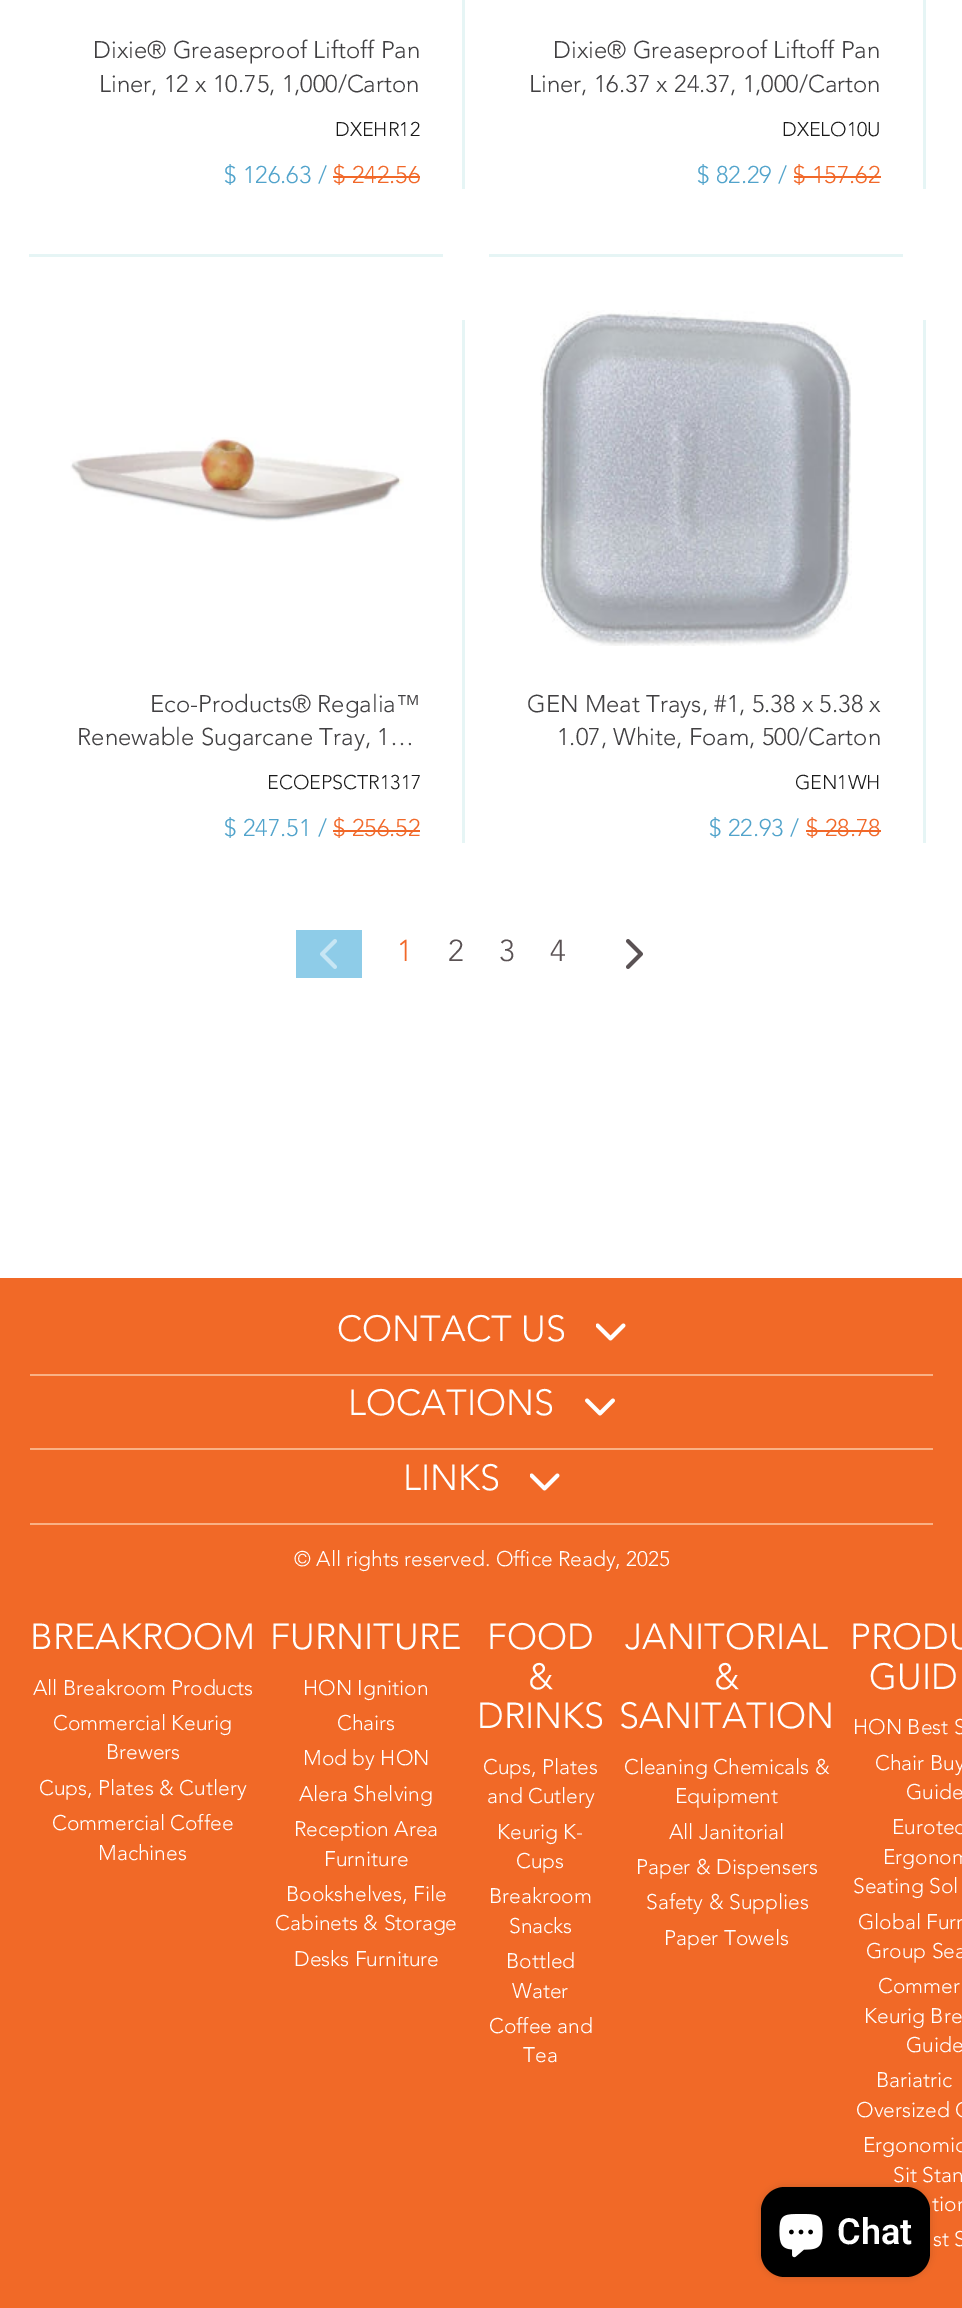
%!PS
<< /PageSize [962 2308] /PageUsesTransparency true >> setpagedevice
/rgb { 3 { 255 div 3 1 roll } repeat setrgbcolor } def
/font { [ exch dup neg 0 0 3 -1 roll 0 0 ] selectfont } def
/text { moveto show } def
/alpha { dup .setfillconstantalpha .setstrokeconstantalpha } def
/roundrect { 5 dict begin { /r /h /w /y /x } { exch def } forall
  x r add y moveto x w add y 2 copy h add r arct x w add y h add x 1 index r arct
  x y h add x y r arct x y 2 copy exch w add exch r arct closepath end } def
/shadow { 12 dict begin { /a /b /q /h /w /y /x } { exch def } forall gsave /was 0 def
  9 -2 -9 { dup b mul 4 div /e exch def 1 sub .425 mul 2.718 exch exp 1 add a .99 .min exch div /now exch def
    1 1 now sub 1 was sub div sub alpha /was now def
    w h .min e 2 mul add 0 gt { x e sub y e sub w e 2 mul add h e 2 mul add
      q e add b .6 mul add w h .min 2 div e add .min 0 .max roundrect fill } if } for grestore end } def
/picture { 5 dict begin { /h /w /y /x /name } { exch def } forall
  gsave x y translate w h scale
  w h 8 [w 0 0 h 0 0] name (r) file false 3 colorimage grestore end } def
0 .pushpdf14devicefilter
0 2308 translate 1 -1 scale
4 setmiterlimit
255 255 255 rgb
0 0 962 2308 rectfill
241 104 41 rgb
333 176 87 2 rectfill
230 245 245 rgb
462 0 3 189 rectfill
241 104 41 rgb
794 176 87 2 rectfill
230 245 245 rgb
923 0 3 189 rectfill
29 254 414 3 rectfill
(img_01.rgb) 70 437 334 85 picture
462 320 3 523 rectfill
241 104 41 rgb
333 830 87 2 rectfill
230 245 245 rgb
489 254 414 3 rectfill
(img_02.rgb) 540 310 312 336 picture
923 320 3 523 rectfill
241 104 41 rgb
806 830 75 2 rectfill
142 204 232 rgb
296 930 66 48 rectfill
(img_03.rgb) 320 939 17 30 picture
(img_04.rgb) 626 939 17 30 picture
241 105 39 rgb
0 1278 962 1030 rectfill
249 177 133 rgb
30 1374 903 2 rectfill
(img_05.rgb) 596 1323 30 18 picture
30 1448 903 2 rectfill
(img_06.rgb) 585 1398 30 18 picture
30 1523 903 2 rectfill
(img_05.rgb) 530 1473 30 18 picture
0 0 0 rgb
761 2187 169 90 24 4 0.15 shadow
761 2187 169 90 24 roundrect fill
(img_07.rgb) 779 2214 44 44 picture
/Avenir-Light 24 font
65 64 66 rgb
(Dixie® Greaseproof Liftoff Pan) 93 58 text
(Liner, 12 x 10.75, 1,000/Carton) 99 92 text
/Avenir-Light 19.75 font
26 26 26 rgb
(DXEHR12) 335 136 text
/Avenir-Light 24 font
81 163 203 rgb
($ 126.63 /) 224 183 text
241 104 41 rgb
($ 242.56) 333 183 text
65 64 66 rgb
(Dixie® Greaseproof Liftoff Pan) 553 58 text
(Liner, 16.37 x 24.37, 1,000/Carton) 529 92 text
/Avenir-Light 19.75 font
26 26 26 rgb
(DXELO10U) 782 136 text
/Avenir-Light 24 font
81 163 203 rgb
($ 82.29 /) 697 183 text
241 104 41 rgb
($ 157.62) 793 183 text
65 64 66 rgb
(Eco-Products® Regalia™) 150 712 text
(Renewable Sugarcane Tray, 1…) 77 745 text
/Avenir-Light 19.75 font
26 26 26 rgb
(ECOEPSCTR1317) 267 789 text
/Avenir-Light 24 font
81 163 203 rgb
($ 247.51 /) 224 836 text
241 104 41 rgb
($ 256.52) 333 836 text
65 64 66 rgb
(GEN Meat Trays, #1, 5.38 x 5.38 x) 527 712 text
(1.07, White, Foam, 500/Carton) 557 745 text
/Avenir-Light 19.75 font
26 26 26 rgb
(GEN1WH) 795 789 text
/Avenir-Light 24 font
81 163 203 rgb
($ 22.93 /) 709 836 text
241 104 41 rgb
($ 28.78) 806 836 text
/Avenir-Light 30 font
(1) 397 961 text
90 82 84 rgb
(2) 448 961 text
(3) 499 961 text
(4) 550 961 text
/Avenir-Light 36 font
255 255 255 rgb
(CONTACT US) 337 1341 text
(LOCATIONS) 348 1415 text
(LINKS) 403 1490 text
/Avenir-Light 21 font
(© All rights reserved. Office Ready, 2025) 294 1566 text
/Avenir-Light 36 font
(BREAKROOM) 30 1649 text
/Avenir-Light 21 font
(All Breakroom Products) 33 1695 text
(Commercial Keurig) 53 1730 text
(Brewers) 106 1759 text
(Cups, Plates & Cutlery) 39 1795 text
(Commercial Coffee) 52 1830 text
(Machines) 98 1860 text
/Avenir-Light 36 font
(FURNITURE) 270 1649 text
/Avenir-Light 21 font
(HON Ignition) 303 1695 text
(Chairs) 337 1730 text
(Mod by HON) 303 1765 text
(Alera Shelving) 299 1801 text
(Reception Area) 294 1836 text
(Furniture) 324 1866 text
(Bookshelves, File) 286 1901 text
(Cabinets & Storage) 275 1930 text
(Desks Furniture) 294 1966 text
/Avenir-Light 36 font
(FOOD) 487 1649 text
(&) 528 1689 text
(DRINKS) 477 1728 text
/Avenir-Light 21 font
(Cups, Plates) 483 1774 text
(and Cutlery) 487 1803 text
(Keurig K-) 497 1839 text
(Cups) 516 1868 text
(Breakroom) 489 1903 text
(Snacks) 509 1933 text
(Bottled) 506 1968 text
(Water) 512 1998 text
(Coffee and) 489 2033 text
(Tea) 523 2062 text
/Avenir-Light 36 font
(JANITORIAL) 625 1649 text
(&) 714 1689 text
(SANITATION) 619 1728 text
/Avenir-Light 21 font
(Cleaning Chemicals &) 624 1774 text
(Equipment) 675 1803 text
(All Janitorial) 669 1839 text
(Paper & Dispensers) 636 1874 text
(Safety & Supplies) 646 1909 text
(Paper Towels) 664 1945 text
/Avenir-Light 36 font
(PRODU) 850 1649 text
(GUID) 869 1689 text
/Avenir-Light 21 font
(HON Best S) 853 1734 text
(Chair Buy) 875 1770 text
(Guide) 906 1799 text
(Eurotec) 892 1834 text
(Ergonom) 883 1864 text
(Seating Sol) 853 1893 text
(Global Furn) 858 1929 text
(Group Sea) 866 1958 text
(Commer) 878 1993 text
(Keurig Bre) 864 2023 text
(Guide) 906 2052 text
(Bariatric) 876 2087 text
(Oversized C) 856 2117 text
(Ergonomic) 863 2152 text
(Sit Stan) 893 2182 text
(tion) 932 2211 text
(st S) 933 2246 text
/Roboto-SemiBold 36 font
(Chat) 837 2244 text
.poppdf14devicefilter showpage
